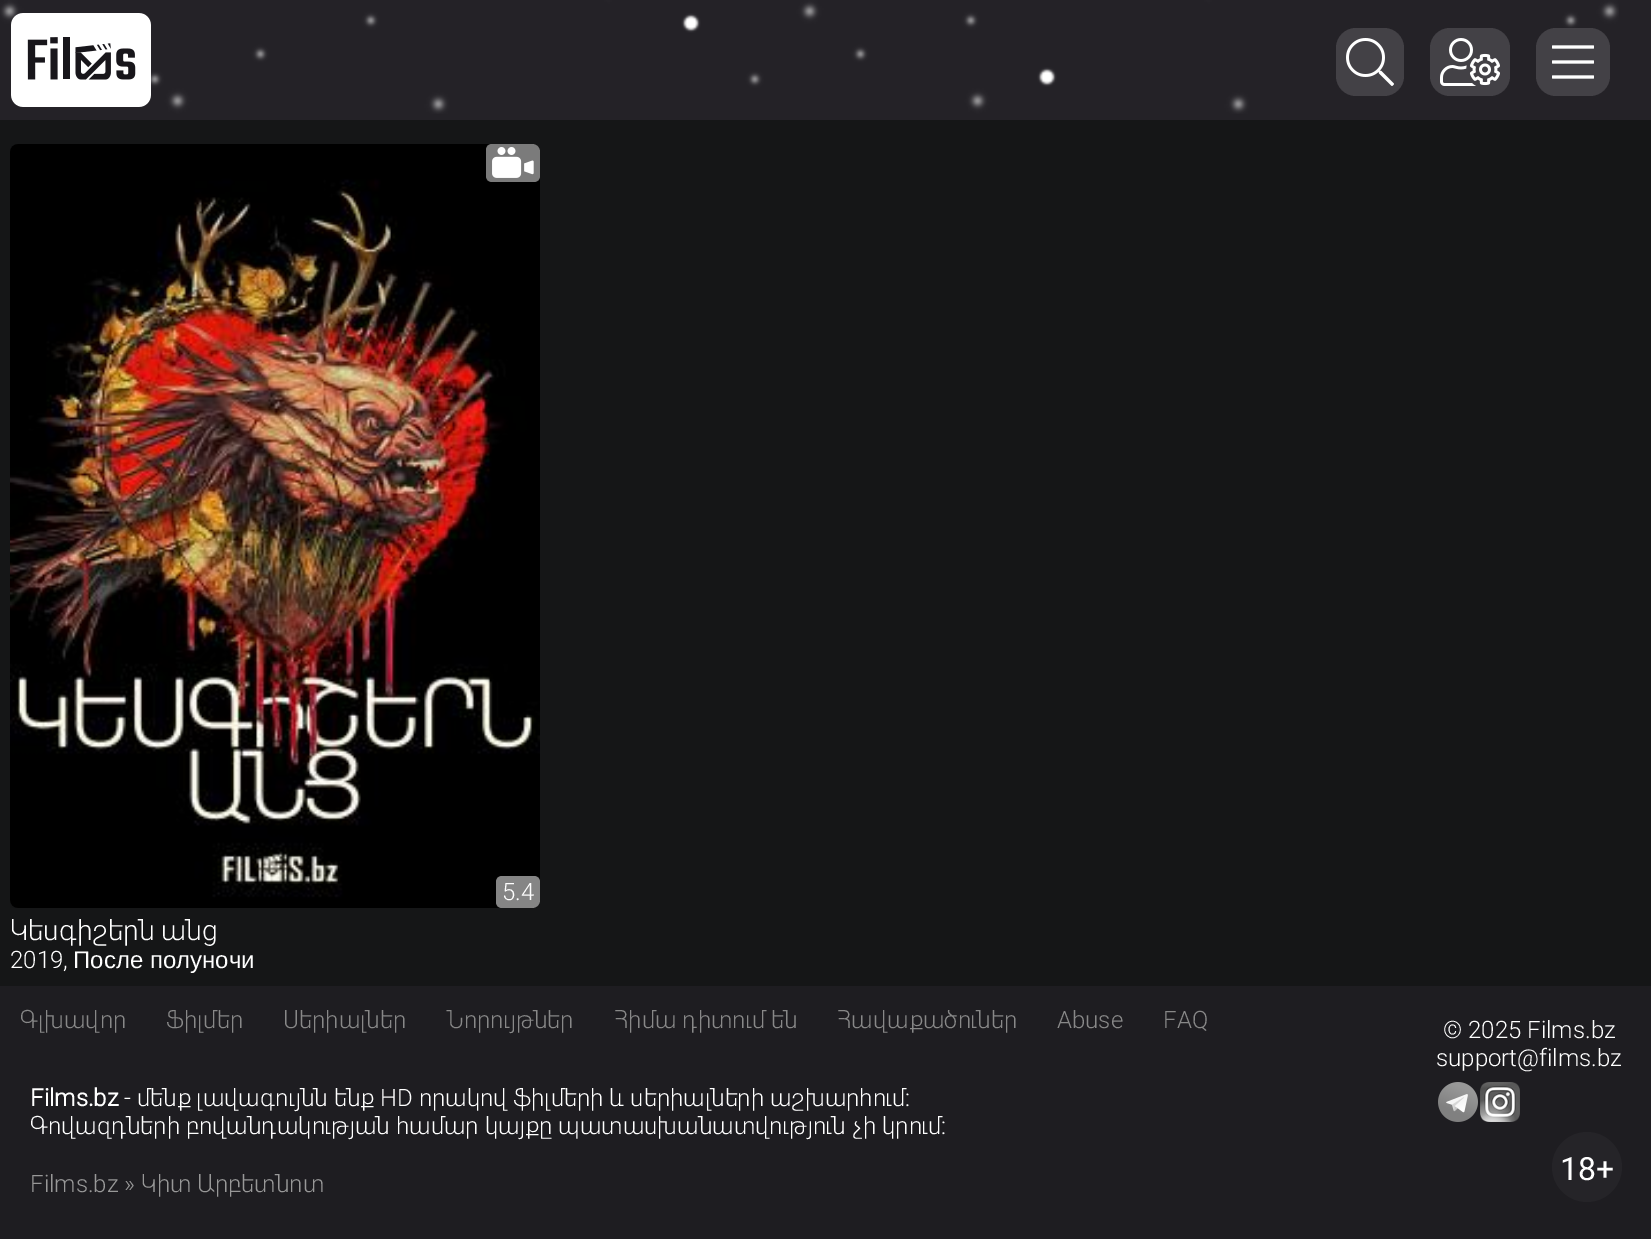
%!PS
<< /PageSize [1651 1239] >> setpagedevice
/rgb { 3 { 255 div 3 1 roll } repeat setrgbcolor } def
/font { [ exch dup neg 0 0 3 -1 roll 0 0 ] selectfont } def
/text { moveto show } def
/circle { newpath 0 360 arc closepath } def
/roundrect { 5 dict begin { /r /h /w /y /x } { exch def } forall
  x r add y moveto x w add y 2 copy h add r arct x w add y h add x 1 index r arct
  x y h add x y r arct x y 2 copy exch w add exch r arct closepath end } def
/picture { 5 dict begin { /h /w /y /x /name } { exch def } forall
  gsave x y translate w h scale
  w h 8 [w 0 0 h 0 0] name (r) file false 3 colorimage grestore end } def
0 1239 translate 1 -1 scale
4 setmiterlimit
21 22 23 rgb
0 0 1651 1239 rectfill
36 34 39 rgb
0 0 1651 120 rectfill
(img_01.rgb) 0 0 1619 114 picture
(img_02.rgb) 11 13 140 94 picture
67 65 70 rgb
1336 28 68 68 20 roundrect fill
(img_03.rgb) 1346 38 48 48 picture
1430 28 80 68 20 roundrect fill
(img_04.rgb) 1440 38 60 48 picture
1536 28 74 68 20 roundrect fill
(img_05.rgb) 1552 45 42 34 picture
(img_06.rgb) 10 144 530 764 picture
123 123 123 rgb
492 144 moveto 40 0 rlineto 4.5 0 8 3.5 8 8 rcurveto 0 24 rlineto 0 3.5 -2.5 6 -6 6 rcurveto -42 0 rlineto -3.5 0 -6 -2.5 -6 -6 rcurveto 0 -26 rlineto 0 -3.5 2.5 -6 6 -6 rcurveto closepath fill
(img_07.rgb) 492 147 42 31 picture
133 133 133 rgb
502 876 moveto 32 0 rlineto 3.5 0 6 2.5 6 6 rcurveto 0 18 rlineto 0 4.5 -3.5 8 -8 8 rcurveto -30 0 rlineto -3.5 0 -6 -2.5 -6 -6 rcurveto 0 -20 rlineto 0 -3.5 2.5 -6 6 -6 rcurveto closepath fill
30 29 33 rgb
0 986 1651 253 rectfill
(img_08.rgb) 1438 1082 40 40 picture
(img_09.rgb) 1480 1082 40 40 picture
37 36 40 rgb
1587 1167 35 circle fill
/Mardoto-Light 24 font
255 255 255 rgb
(5.4) 502 900 text
/Mardoto-Light 28 font
(Կեսգիշերն անց) 10 940 text
/Mardoto-Light 24 font
(2019,) 10 968 text
/LiberationSans-Regular 24 font
(После полуночи) 73 968 text
/Mardoto-Light 24 font
136 136 136 rgb
(Գլխավոր) 20 1028 text
(Ֆիլմեր) 166 1028 text
(Սերիալներ) 283 1028 text
(Նորույթներ) 446 1028 text
(Հիմա դիտում են) 614 1028 text
(Հավաքածուներ) 837 1028 text
(Abuse) 1057 1028 text
(FAQ) 1163 1028 text
255 255 255 rgb
(© 2025 Films.bz) 1443 1038 text
(support@films.bz) 1436 1066 text
/Roboto-Regular 32 font
(18+) 1560 1180 text
/Mardoto-Bold 24 font
(Films.bz) 30 1106 text
/Mardoto-Light 24 font
(- մենք լավագույնն ենք HD որակով ֆիլմերի և սերիալների աշխարհում:) 124 1106 text
(Գովազդների բովանդակության համար կայքը պատասխանատվություն չի կրում:) 30 1134 text
152 152 152 rgb
(Films.bz » Կիտ Արբետնոտ) 30 1192 text
showpage
